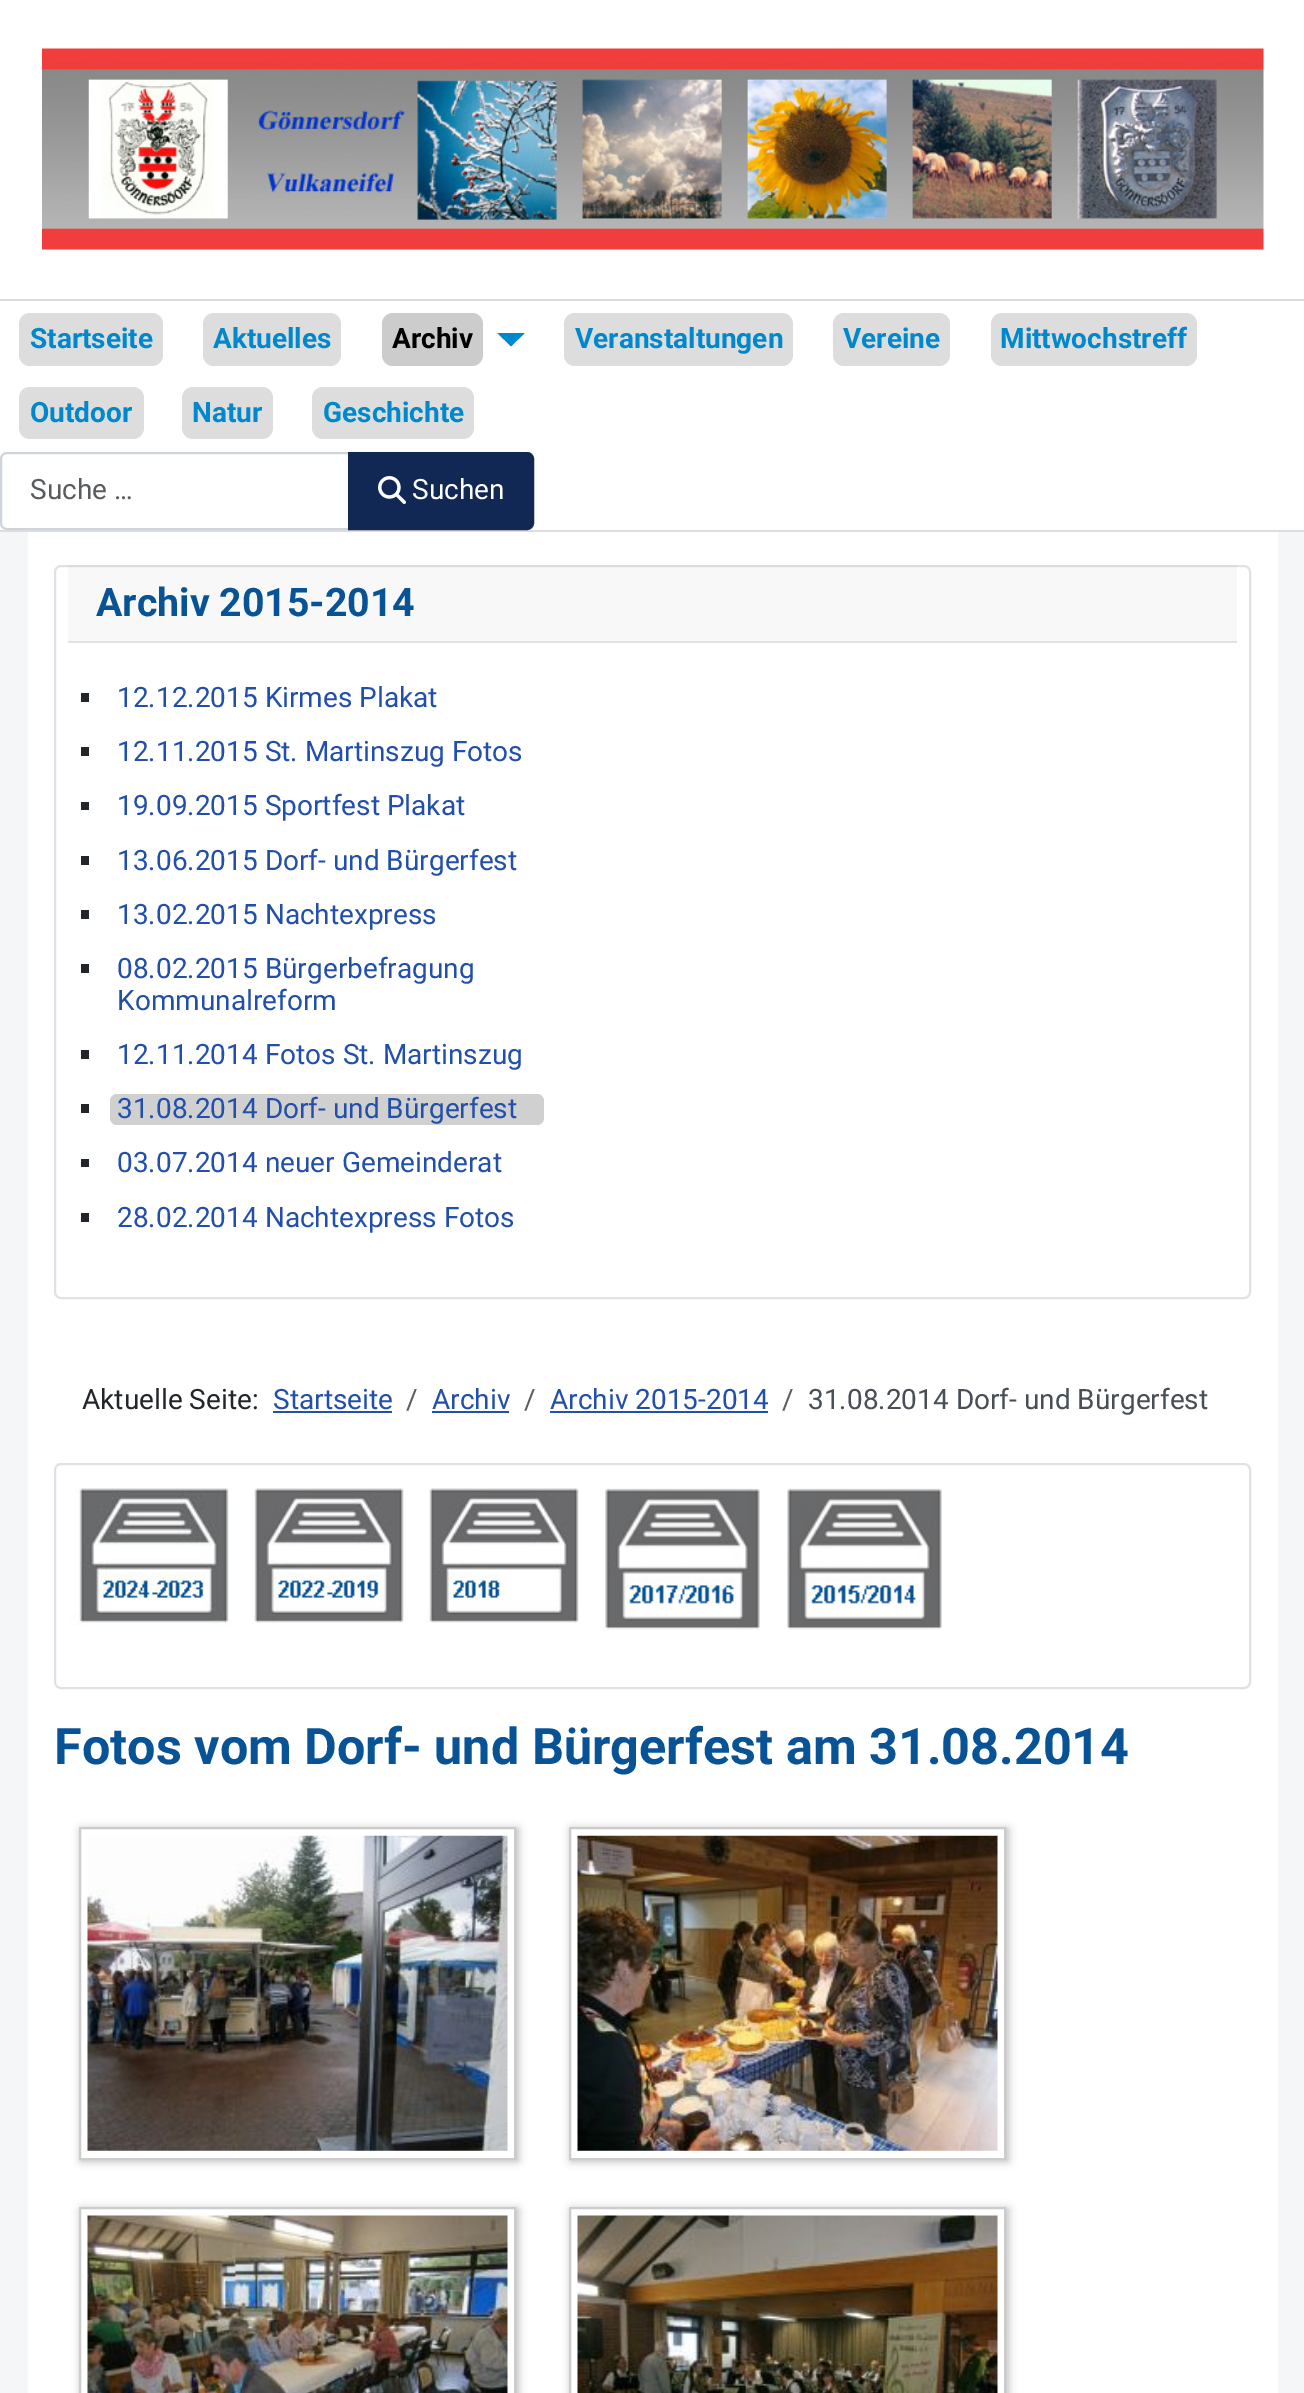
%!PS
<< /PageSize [1304 2393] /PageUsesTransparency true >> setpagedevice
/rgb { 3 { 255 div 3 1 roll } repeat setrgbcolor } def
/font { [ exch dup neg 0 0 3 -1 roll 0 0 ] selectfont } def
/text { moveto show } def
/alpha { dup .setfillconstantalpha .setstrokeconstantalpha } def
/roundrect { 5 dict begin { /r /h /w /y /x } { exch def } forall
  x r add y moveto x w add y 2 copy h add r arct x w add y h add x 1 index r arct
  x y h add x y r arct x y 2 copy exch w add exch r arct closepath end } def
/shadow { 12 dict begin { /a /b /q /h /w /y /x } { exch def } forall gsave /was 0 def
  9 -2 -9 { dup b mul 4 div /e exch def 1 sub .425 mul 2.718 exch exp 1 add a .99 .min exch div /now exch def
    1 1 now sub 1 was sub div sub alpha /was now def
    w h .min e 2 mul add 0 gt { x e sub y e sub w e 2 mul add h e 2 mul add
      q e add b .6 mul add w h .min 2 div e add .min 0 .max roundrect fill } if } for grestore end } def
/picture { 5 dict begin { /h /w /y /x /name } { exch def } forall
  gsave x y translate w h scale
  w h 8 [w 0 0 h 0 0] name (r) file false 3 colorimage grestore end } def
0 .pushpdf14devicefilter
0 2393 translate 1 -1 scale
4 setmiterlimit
244 246 247 rgb
0 0 1304 2393 rectfill
255 255 255 rgb
0 0 1304 299 rectfill
(img_01.rgb) 42 48 1222 202 picture
0 301 1304 229 rectfill
221 221 221 rgb
0 299 1304 2 rectfill
0 530 1304 2 rectfill
19 313 144 53 11 roundrect fill
203 313 138 53 11 roundrect fill
204 204 204 rgb
382 313 101 53 11 roundrect fill
gsave
483 333 42 14 rectclip
0 136 204 rgb
497 332.5 moveto 28 0 rlineto -14 14 rlineto closepath fill
grestore
221 221 221 rgb
564 313 229 53 11 roundrect fill
833 313 117 53 11 roundrect fill
991 313 206 53 11 roundrect fill
19 387 125 52 11 roundrect fill
182 387 91 52 11 roundrect fill
312 387 162 52 11 roundrect fill
206 212 218 rgb
2 setlinewidth
7 453 moveto 342 0 rlineto 0 76 rlineto -342 0 rlineto -3.5 0 -6 -2.5 -6 -6 rcurveto 0 -64 rlineto 0 -3.5 2.5 -6 6 -6 rcurveto closepath stroke
17 40 85 rgb
349 453 moveto 178 0 rlineto 3.5 0 6 2.5 6 6 rcurveto 0 64 rlineto 0 3.5 -2.5 6 -6 6 rcurveto -178 0 rlineto closepath gsave fill grestore
stroke
(img_02.rgb) 378 476 28 28 picture
255 255 255 rgb
28 532 1250 1861 rectfill
223 227 231 rgb
55 566 1195 732 6 roundrect stroke
0.03 alpha
34 38 42 rgb
68 565 1169 76 rectfill
1 alpha
223 227 231 rgb
68 641 1169 2 rectfill
34 38 42 rgb
81 693 8 9 rectfill
81 747 8 9 rectfill
81 802 8 8 rectfill
81 856 8 9 rectfill
81 910 8 9 rectfill
81 964 8 9 rectfill
81 1050 8 9 rectfill
81 1104 8 9 rectfill
208 208 208 rgb
110 1094 434 31 7 roundrect fill
34 38 42 rgb
81 1159 8 8 rectfill
81 1213 8 9 rectfill
34 79 170 rgb
273 1411 119 2 rectfill
432 1411 77 2 rectfill
550 1411 218 2 rectfill
223 227 231 rgb
55 1464 1195 224 6 roundrect stroke
(img_03.rgb) 70 1488 161 138 picture
(img_04.rgb) 252 1488 152 135 picture
(img_05.rgb) 427 1488 152 135 picture
(img_06.rgb) 605 1488 155 142 picture
(img_07.rgb) 787 1488 155 142 picture
181 181 181 rgb
81 1829 437 332 0 4.5 1 shadow
255 255 255 rgb
80 1828 moveto 435 0 rlineto 0 331 rlineto -435 0 rlineto closepath gsave fill grestore
204 204 204 rgb
stroke
(img_08.rgb) 87 1835 421 316 picture
181 181 181 rgb
571 1829 437 332 0 4.5 1 shadow
255 255 255 rgb
570 1828 moveto 435 0 rlineto 0 331 rlineto -435 0 rlineto closepath gsave fill grestore
204 204 204 rgb
stroke
(img_09.rgb) 577 1835 421 316 picture
gsave
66 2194 moveto 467 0 rlineto 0 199 rlineto -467 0 rlineto closepath 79 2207 moveto 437 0 rlineto 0 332 rlineto -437 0 rlineto closepath eoclip newpath
181 181 181 rgb
81 2209 437 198 0 4.5 1 shadow
grestore
80 2208 435 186 rectstroke
(img_10.rgb) 87 2215 421 178 picture
gsave
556 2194 moveto 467 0 rlineto 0 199 rlineto -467 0 rlineto closepath 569 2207 moveto 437 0 rlineto 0 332 rlineto -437 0 rlineto closepath eoclip newpath
181 181 181 rgb
571 2209 437 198 0 4.5 1 shadow
grestore
570 2208 435 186 rectstroke
(img_11.rgb) 577 2215 421 178 picture
/Roboto-Bold 28 font
0 136 204 rgb
(Startseite) 30 348 text
(Aktuelles) 213 348 text
0 0 0 rgb
(Archiv) 392 348 text
0 136 204 rgb
(Veranstaltungen) 575 348 text
(Vereine) 843 348 text
(Mittwochstreff) 1000 348 text
(Outdoor) 30 422 text
(Natur) 192 422 text
(Geschichte) 323 422 text
/Roboto-Regular 28 font
89 92 95 rgb
(Suche …) 30 499 text
255 255 255 rgb
(Suchen) 412 499 text
/Roboto-Bold 39.25 font
8 83 150 rgb
(Archiv 2015-2014) 96 616 text
/Roboto-Regular 28 font
34 79 170 rgb
(12.12.2015 Kirmes Plakat) 117 707 text
(12.11.2015 St. Martinszug Fotos) 117 761 text
(19.09.2015 Sportfest Plakat) 117 815 text
(13.06.2015 Dorf- und Bürgerfest) 117 870 text
(13.02.2015 Nachtexpress) 117 924 text
(08.02.2015 Bürgerbefragung) 117 978 text
(Kommunalreform) 117 1010 text
(12.11.2014 Fotos St. Martinszug) 117 1064 text
(31.08.2014 Dorf- und Bürgerfest) 117 1118 text
(03.07.2014 neuer Gemeinderat) 117 1172 text
(28.02.2014 Nachtexpress Fotos) 117 1227 text
34 38 42 rgb
(Aktuelle Seite:) 82 1409 text
34 79 170 rgb
(Startseite) 273 1409 text
89 92 95 rgb
(/) 406 1409 text
34 79 170 rgb
(Archiv) 432 1409 text
89 92 95 rgb
(/) 524 1409 text
34 79 170 rgb
(Archiv 2015-2014) 550 1409 text
89 92 95 rgb
(/) 782 1409 text
72 79 86 rgb
(31.08.2014 Dorf- und Bürgerfest) 808 1409 text
/Roboto-Bold 50.4 font
8 83 150 rgb
(Fotos vom Dorf- und Bürgerfest am 31.08.2014) 54 1764 text
.poppdf14devicefilter showpage
